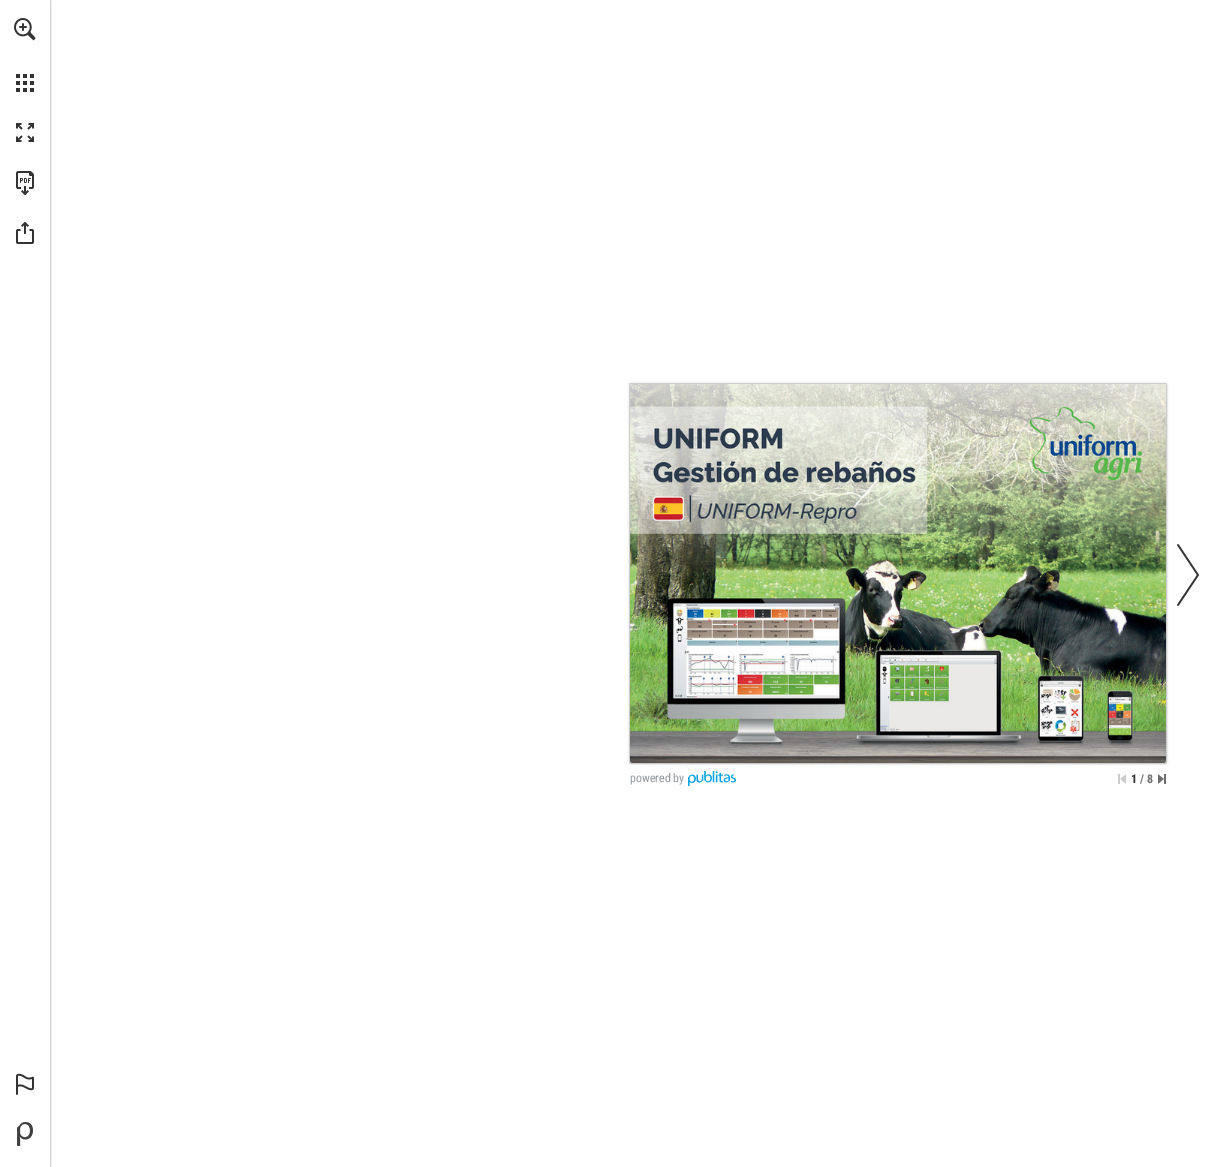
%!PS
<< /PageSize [1209 1167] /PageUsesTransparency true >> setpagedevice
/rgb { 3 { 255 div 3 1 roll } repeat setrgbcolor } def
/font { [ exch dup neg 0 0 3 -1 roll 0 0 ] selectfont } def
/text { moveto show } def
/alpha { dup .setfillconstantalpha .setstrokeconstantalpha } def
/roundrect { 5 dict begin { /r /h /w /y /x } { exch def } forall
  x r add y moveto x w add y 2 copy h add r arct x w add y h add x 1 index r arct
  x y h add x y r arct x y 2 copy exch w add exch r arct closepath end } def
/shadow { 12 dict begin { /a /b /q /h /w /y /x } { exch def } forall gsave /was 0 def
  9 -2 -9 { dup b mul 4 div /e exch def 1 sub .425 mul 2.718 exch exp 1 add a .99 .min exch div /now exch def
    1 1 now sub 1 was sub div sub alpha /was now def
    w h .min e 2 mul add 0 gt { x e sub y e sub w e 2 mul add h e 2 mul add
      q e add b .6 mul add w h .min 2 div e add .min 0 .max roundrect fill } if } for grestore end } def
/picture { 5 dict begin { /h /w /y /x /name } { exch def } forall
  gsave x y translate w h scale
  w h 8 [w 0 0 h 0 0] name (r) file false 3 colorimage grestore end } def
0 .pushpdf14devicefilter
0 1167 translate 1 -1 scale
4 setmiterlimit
255 255 255 rgb
0 0 1209 1167 rectfill
0 0 0 rgb
1 0 50 1167 0 0.5 0.2 shadow
255 255 255 rgb
0 0 50 1167 rectfill
(img_01.rgb) 14 18 22 23 picture
(img_02.rgb) 16 74 18 18 picture
(img_03.rgb) 16 123 18 19 picture
(img_04.rgb) 16 171 18 24 picture
(img_05.rgb) 16 222 18 22 picture
(img_06.rgb) 16 1073 18 22 picture
(img_07.rgb) 17 1122 16 24 picture
18 18 18 rgb
628 382 540 383 3 1 0.05 shadow
255 255 255 rgb
629.5 383.5 537 380 1.5 roundrect gsave fill grestore
204 204 204 rgb
stroke
(img_08.rgb) 630 384 536 379 picture
(img_09.rgb) 688 771 48 15 picture
(img_10.rgb) 1177 544 23 62 picture
(img_11.rgb) 1118 774 8 10 picture
(img_12.rgb) 1158 774 8 10 picture
/RobotoCondensed-Regular 12 font
143 150 155 rgb
(powered by) 630 782 text
/RobotoCondensed-Bold 12 font
51 51 51 rgb
(1) 1131 783 text
112 112 112 rgb
(/ 8) 1140 783 text
.poppdf14devicefilter showpage
